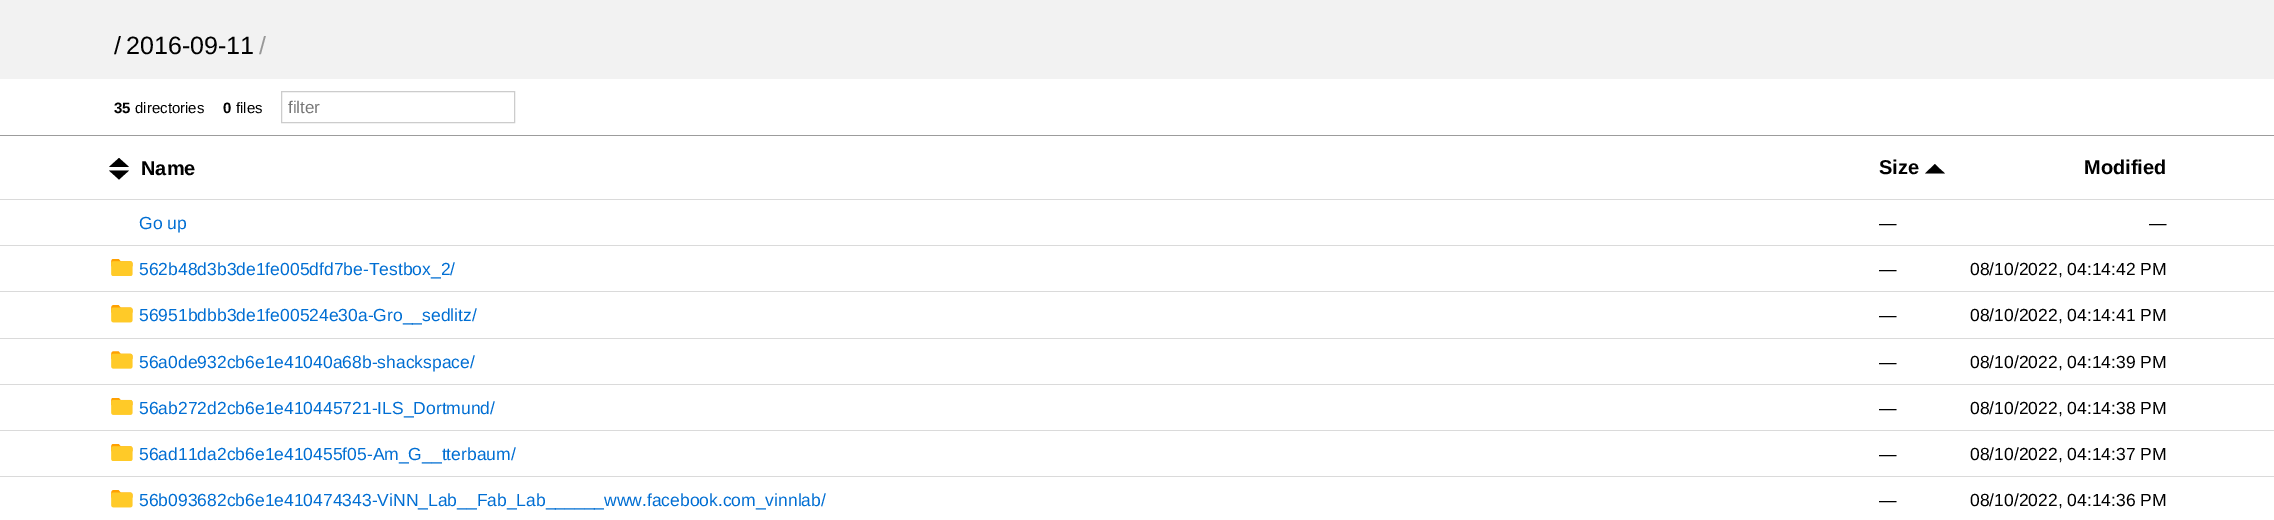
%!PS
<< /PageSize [2274 520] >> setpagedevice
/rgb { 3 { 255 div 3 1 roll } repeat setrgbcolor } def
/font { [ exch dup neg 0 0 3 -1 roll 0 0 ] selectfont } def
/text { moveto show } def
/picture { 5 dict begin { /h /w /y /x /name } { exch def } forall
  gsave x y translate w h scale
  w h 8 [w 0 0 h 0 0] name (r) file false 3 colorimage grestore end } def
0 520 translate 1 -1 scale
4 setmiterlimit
255 255 255 rgb
0 0 2274 520 rectfill
242 242 242 rgb
0 0 2274 79 rectfill
156 156 156 rgb
0 135 2274 1 rectfill
204 204 204 rgb
281.5 91.5 233 31 rectstroke
218 218 218 rgb
0 199 2274 1 rectfill
0 0 0 rgb
129 167 moveto -20 0 rlineto 10 -9 rlineto 5 4.5 rlineto closepath 129 170.5 moveto -20 0 rlineto 10 9 rlineto 5 -4.5 rlineto closepath fill
1945 173.5 moveto -20 0 rlineto 10 -9.5 rlineto 5 5 rlineto closepath fill
218 218 218 rgb
0 245 2274 1 rectfill
0 291 2274 1 rectfill
(img_01.rgb) 111 259 22 17 picture
0 338 2274 1 rectfill
(img_02.rgb) 111 305 22 18 picture
0 384 2274 1 rectfill
(img_03.rgb) 111 351 22 18 picture
0 430 2274 1 rectfill
(img_04.rgb) 111 398 22 17 picture
0 476 2274 1 rectfill
(img_01.rgb) 111 444 22 17 picture
(img_02.rgb) 111 490 22 18 picture
/LiberationSans-Regular 25 font
0 0 0 rgb
(/) 114 54 text
(2016-09-11) 126 54 text
153 153 153 rgb
(/) 259 54 text
/LiberationSans-Bold 15 font
0 0 0 rgb
(35) 114 113 text
/LiberationSans-Regular 15 font
(directories) 135 113 text
/LiberationSans-Bold 15 font
(0) 223 113 text
/LiberationSans-Regular 15 font
(files) 236 113 text
/LiberationSans-Regular 17 font
117 117 117 rgb
(filter) 288 113 text
/LiberationSans-Bold 20 font
0 0 0 rgb
(Name) 141 175 text
(Size) 1879 174 text
(Modified) 2084 174 text
/LiberationSans-Regular 17.5 font
0 110 211 rgb
(Go up) 139 229 text
0 0 0 rgb
(—) 1879 229 text
(—) 2149 229 text
0 110 211 rgb
(562b48d3b3de1fe005dfd7be-Testbox_2/) 139 275 text
0 0 0 rgb
(—) 1879 275 text
(08/10/2022, 04:14:42 PM) 1970 275 text
0 110 211 rgb
(56951bdbb3de1fe00524e30a-Gro__sedlitz/) 139 321 text
0 0 0 rgb
(—) 1879 321 text
(08/10/2022, 04:14:41 PM) 1970 321 text
0 110 211 rgb
(56a0de932cb6e1e41040a68b-shackspace/) 139 368 text
0 0 0 rgb
(—) 1879 368 text
(08/10/2022, 04:14:39 PM) 1970 368 text
0 110 211 rgb
(56ab272d2cb6e1e410445721-ILS_Dortmund/) 139 414 text
0 0 0 rgb
(—) 1879 414 text
(08/10/2022, 04:14:38 PM) 1970 414 text
0 110 211 rgb
(56ad11da2cb6e1e410455f05-Am_G__tterbaum/) 139 460 text
0 0 0 rgb
(—) 1879 460 text
(08/10/2022, 04:14:37 PM) 1970 460 text
0 110 211 rgb
(56b093682cb6e1e410474343-ViNN_Lab__Fab_Lab______www.facebook.com_vinnlab/) 139 506 text
0 0 0 rgb
(—) 1879 506 text
(08/10/2022, 04:14:36 PM) 1970 506 text
showpage
